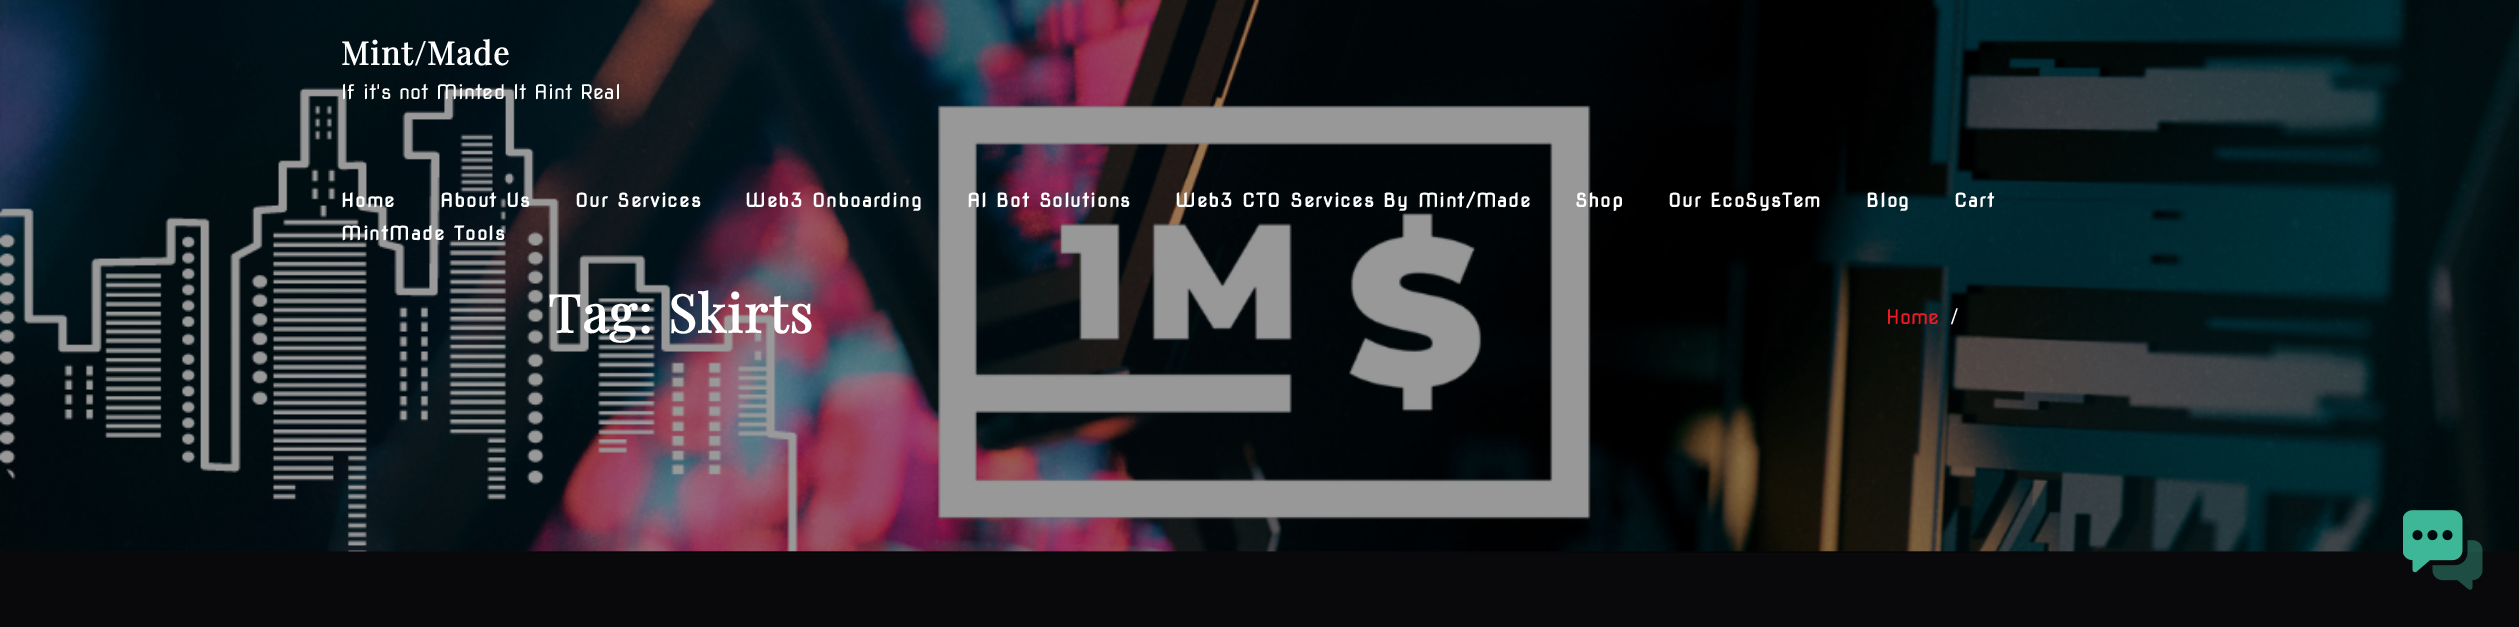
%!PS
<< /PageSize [2519 627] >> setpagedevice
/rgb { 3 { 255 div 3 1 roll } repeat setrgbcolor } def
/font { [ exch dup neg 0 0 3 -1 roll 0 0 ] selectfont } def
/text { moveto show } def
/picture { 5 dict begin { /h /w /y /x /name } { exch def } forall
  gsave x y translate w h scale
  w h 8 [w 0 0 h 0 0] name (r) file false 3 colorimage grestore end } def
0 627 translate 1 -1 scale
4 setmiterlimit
9 8 10 rgb
0 0 2519 627 rectfill
(img_01.rgb) 0 0 2519 552 picture
(img_02.rgb) 528 551 1545 2 picture
(img_03.rgb) 2403 510 80 80 picture
/PlayfairDisplay-Bold 32 font
255 255 255 rgb
341 65 moveto 1.25 0 (Mint/Made) ashow
/NovaSquare-Regular 20 font
(If it's not Minted It Aint Real) 341 99 text
/NovaSquare-Bold 18.75 font
341 207 moveto 1.25 0 (Home) ashow
440 207 moveto 1.25 0 (About Us) ashow
575 207 moveto 1.25 0 (Our Services) ashow
745 207 moveto 1.25 0 (Web3 Onboarding) ashow
967 207 moveto 1.25 0 (AI Bot Solutions) ashow
1175 207 moveto 1.25 0 (Web3 CTO Services By Mint/Made) ashow
1575 207 moveto 1.25 0 (Shop) ashow
1668 207 moveto 1.25 0 (Our EcoSysTem) ashow
1866 207 moveto 1.25 0 (Blog) ashow
1954 207 moveto 1.25 0 (Cart) ashow
341 240 moveto 1.25 0 (MintMade Tools) ashow
/PlayfairDisplay-Bold 52.5 font
548 333 moveto 1.25 0 (Tag: Skirts) ashow
/NovaSquare-Regular 20 font
237 28 36 rgb
(Home) 1886 324 text
/LiberationSerif-Bold 24 font
255 255 255 rgb
1951 324 moveto 2 0 (/) ashow
showpage
